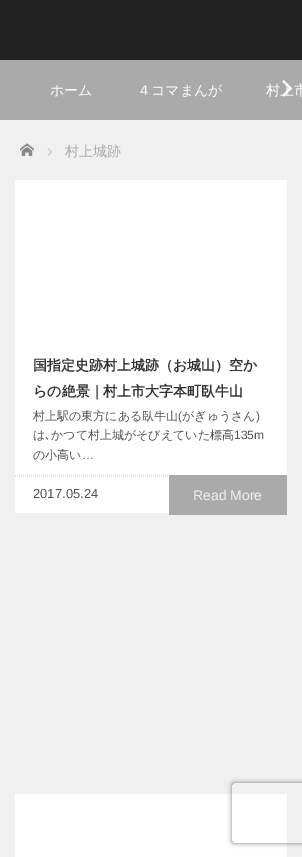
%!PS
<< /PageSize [302 857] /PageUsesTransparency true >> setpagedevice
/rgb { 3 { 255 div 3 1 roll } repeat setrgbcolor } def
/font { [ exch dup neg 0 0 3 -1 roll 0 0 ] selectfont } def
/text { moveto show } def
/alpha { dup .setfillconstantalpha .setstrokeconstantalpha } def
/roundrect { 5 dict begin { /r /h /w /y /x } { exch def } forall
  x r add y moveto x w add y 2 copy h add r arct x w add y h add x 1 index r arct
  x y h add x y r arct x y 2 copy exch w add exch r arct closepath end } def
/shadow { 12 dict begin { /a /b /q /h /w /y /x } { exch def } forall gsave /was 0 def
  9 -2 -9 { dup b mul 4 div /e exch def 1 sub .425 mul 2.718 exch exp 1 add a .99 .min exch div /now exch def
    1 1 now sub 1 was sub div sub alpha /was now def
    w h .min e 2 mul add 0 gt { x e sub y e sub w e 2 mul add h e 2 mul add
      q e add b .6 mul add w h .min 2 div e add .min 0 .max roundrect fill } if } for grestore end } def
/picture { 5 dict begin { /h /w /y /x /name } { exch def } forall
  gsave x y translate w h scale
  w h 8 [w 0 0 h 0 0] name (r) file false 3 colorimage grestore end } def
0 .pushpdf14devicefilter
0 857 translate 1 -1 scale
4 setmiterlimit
240 240 240 rgb
0 0 302 857 rectfill
34 34 34 rgb
0 0 302 60 rectfill
170 170 170 rgb
0 60 302 60 rectfill
(img_02.rgb) 20 143 14 13 picture
(img_03.rgb) 47 148 5 8 picture
255 255 255 rgb
15 180 272 333 rectfill
211 211 211 rgb
[1 1] 0 setdash
15 475.5 moveto 272 0 rlineto stroke
170 170 170 rgb
169 475 118 40 rectfill
255 255 255 rgb
15 794 272 63 rectfill
gsave
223 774 moveto 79 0 rlineto 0 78 rlineto -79 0 rlineto closepath 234 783 moveto 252 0 rlineto 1 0 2 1 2 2 rcurveto 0 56 rlineto 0 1 -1 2 -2 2 rcurveto -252 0 rlineto -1 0 -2 -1 -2 -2 rcurveto 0 -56 rlineto 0 -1 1 -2 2 -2 rcurveto closepath eoclip newpath
128 128 128 rgb
232 783 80 60 2 2.5 1 shadow
grestore
/WenQuanYiZenHei-Medium 14 font
(ホーム) 50 95 text
(４コマまんが) 137 95 text
(村上市) 266 95 text
(img_01.rgb) 282 80 10 17 picture
170 170 170 rgb
(村上城跡) 65 156 text
/WenQuanYiZenHei-Bold 14 font
51 51 51 rgb
(国指定史跡村上城跡（お城山）空か) 33 370 text
(らの絶景｜村上市大字本町臥牛山) 33 396 text
/WenQuanYiZenHei-Medium 12 font
80 80 80 rgb
(村上駅の東方にある臥牛山) 33 420 text
/LiberationSans-Regular 12 font
(\() 178 420 text
/WenQuanYiZenHei-Medium 12 font
(がぎゅうさん) 182 420 text
/LiberationSans-Regular 12 font
(\)) 256 420 text
/WenQuanYiZenHei-Medium 12 font
(は) 33 439 text
/IPAPGothic-Regular 12 font
(､) 45 439 text
/WenQuanYiZenHei-Medium 12 font
(かつて村上城がそびえていた標高) 51 439 text
/LiberationSans-Regular 12 font
(135m) 234 439 text
/WenQuanYiZenHei-Medium 12 font
(の小高い) 33 459 text
/LiberationSans-Regular 12 font
(…) 82 459 text
/LiberationSans-Regular 13 font
(2017.05.24) 33 498 text
/LiberationSans-Regular 14 font
240 240 240 rgb
(Read More) 193 500 text
.poppdf14devicefilter showpage
